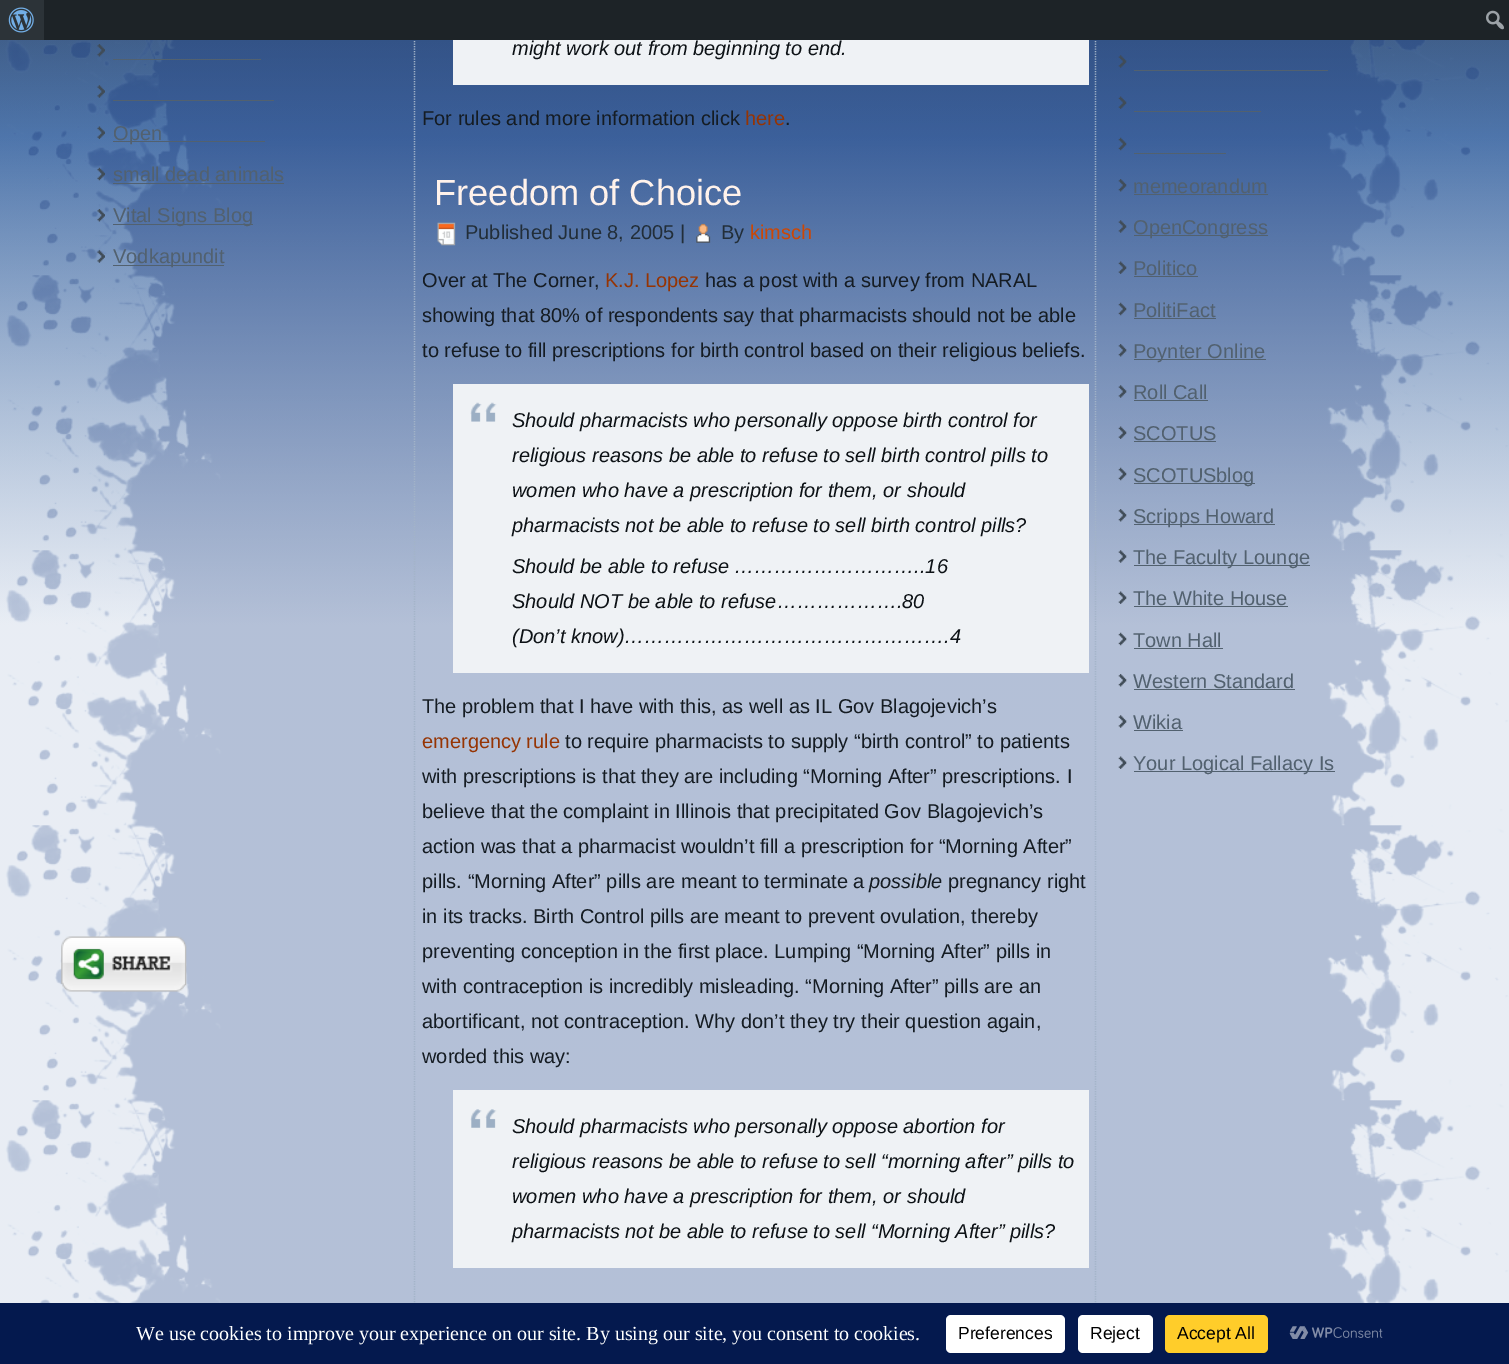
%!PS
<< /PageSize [1509 1364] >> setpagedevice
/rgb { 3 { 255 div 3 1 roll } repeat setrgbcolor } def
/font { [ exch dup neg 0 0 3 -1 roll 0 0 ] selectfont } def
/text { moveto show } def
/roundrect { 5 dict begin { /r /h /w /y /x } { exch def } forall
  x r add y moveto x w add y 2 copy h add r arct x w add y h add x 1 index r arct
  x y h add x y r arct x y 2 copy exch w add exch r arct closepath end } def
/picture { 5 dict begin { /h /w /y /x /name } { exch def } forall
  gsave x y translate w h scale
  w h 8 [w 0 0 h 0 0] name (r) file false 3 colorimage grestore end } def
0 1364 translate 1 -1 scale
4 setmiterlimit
255 255 255 rgb
0 0 1509 1364 rectfill
(img_01.rgb) 0 40 1509 1263 picture
163 180 200 rgb
1.2 setlinewidth
[1.25 1.25] 0 setdash
414.5 -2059 moveto 0 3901.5 rlineto stroke
(img_02.rgb) 97 44 8 13 picture
82 97 111 rgb
113 59 148 1 rectfill
(img_03.rgb) 97 85 8 13 picture
113 100 161 1 rectfill
(img_04.rgb) 97 126 8 13 picture
113 141 152 1 rectfill
(img_05.rgb) 97 167 8 14 picture
113 183 171 1 rectfill
(img_06.rgb) 97 209 8 13 picture
113 224 140 1 rectfill
(img_07.rgb) 97 250 8 13 picture
113 265 111 1 rectfill
239 242 245 rgb
453 40 636 45 rectfill
(img_08.rgb) 437 222 19 24 picture
(img_09.rgb) 696 223 15 20 picture
453 384 636 289 rectfill
(img_10.rgb) 470 402 27 20 picture
453 1090 636 178 rectfill
(img_11.rgb) 470 1109 27 19 picture
163 180 200 rgb
1095.5 -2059 moveto 0 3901.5 rlineto stroke
(img_12.rgb) 1118 55 9 13 picture
82 97 111 rgb
1134 70 194 1 rectfill
(img_13.rgb) 1118 96 9 13 picture
1134 111 127 1 rectfill
(img_14.rgb) 1118 137 9 14 picture
1134 153 92 1 rectfill
(img_15.rgb) 1118 179 9 13 picture
1134 194 134 1 rectfill
(img_16.rgb) 1118 220 9 13 picture
1134 235 134 1 rectfill
(img_17.rgb) 1118 261 9 13 picture
1134 276 64 1 rectfill
(img_18.rgb) 1118 302 9 14 picture
1134 318 82 1 rectfill
(img_19.rgb) 1118 344 9 13 picture
1134 359 132 1 rectfill
(img_20.rgb) 1118 385 9 13 picture
1134 400 74 1 rectfill
(img_21.rgb) 1118 426 9 13 picture
1134 441 82 1 rectfill
(img_22.rgb) 1118 467 9 14 picture
1134 483 121 1 rectfill
(img_23.rgb) 1118 509 9 13 picture
1134 524 141 1 rectfill
(img_24.rgb) 1118 550 9 13 picture
1134 565 176 1 rectfill
(img_25.rgb) 1118 591 9 13 picture
1134 606 154 1 rectfill
(img_26.rgb) 1118 632 9 14 picture
1134 648 89 1 rectfill
(img_27.rgb) 1118 674 9 13 picture
1134 689 161 1 rectfill
(img_28.rgb) 1118 715 9 13 picture
1134 730 49 1 rectfill
(img_29.rgb) 1118 756 9 13 picture
1134 771 201 1 rectfill
29 35 39 rgb
44 0 1465 40 rectfill
44 51 56 rgb
0 0 44 40 rectfill
(img_30.rgb) 8 7 26 26 picture
(img_31.rgb) 1486 10 18 20 picture
(img_32.rgb) 61 936 126 56 picture
4 25 78 rgb
0 1303 1509 61 rectfill
255 255 255 rgb
946 1315 119 38 5 roundrect fill
1078 1315 75 38 5 roundrect fill
255 205 42 rgb
1165 1315 103 38 5 roundrect fill
(img_33.rgb) 1289 1326 94 13 picture
/LiberationSans-Regular 20 font
82 97 111 rgb
(Open) 113 140 text
(small dead animals) 113 181 text
(Vital Signs Blog) 113 222 text
(Vodkapundit) 113 263 text
/LiberationSans-Italic 20 font
13 18 22 rgb
(might work out from beginning to end.) 512 55 text
/LiberationSans-Regular 20 font
21 28 35 rgb
(For rules and more information click) 422 125 text
150 52 3 rgb
(here) 745 125 text
21 28 35 rgb
(.) 785 125 text
/LiberationSans-Regular 36.25 font
255 242 235 rgb
(Freedom of Choice) 434 205 text
/LiberationSans-Regular 20 font
34 46 57 rgb
(Published June 8, 2005 |) 465 239 text
(By) 721 239 text
205 71 4 rgb
(kimsch) 750 239 text
21 28 35 rgb
(Over at The Corner,) 422 287 text
150 52 3 rgb
(K.J. Lopez) 605 287 text
21 28 35 rgb
(has a post with a survey from NARAL) 705 287 text
(showing that 80% of respondents say that pharmacists should not be able) 422 322 text
(to refuse to fill prescriptions for birth control based on their religious beliefs.) 422 357 text
/LiberationSans-Italic 20 font
13 18 22 rgb
(Should pharmacists who personally oppose birth control for) 512 427 text
(religious reasons be able to refuse to sell birth control pills to) 512 462 text
(women who have a prescription for them, or should) 512 497 text
(pharmacists not be able to refuse to sell birth control pills?) 512 532 text
(Should be able to refuse ………………………..16) 512 573 text
(Should NOT be able to refuse……………….80) 512 608 text
(\(Don’t know\)………………………………………….4) 512 643 text
/LiberationSans-Regular 20 font
21 28 35 rgb
(The problem that I have with this, as well as IL Gov Blagojevich’s) 422 713 text
150 52 3 rgb
(emergency rule) 422 748 text
21 28 35 rgb
(to require pharmacists to supply “birth control” to patients) 565 748 text
(with prescriptions is that they are including “Morning After” prescriptions. I) 422 783 text
(believe that the complaint in Illinois that precipitated Gov Blagojevich’s) 422 818 text
(action was that a pharmacist wouldn’t fill a prescription for “Morning After”) 422 853 text
(pills. “Morning After” pills are meant to terminate a) 422 888 text
/LiberationSans-Italic 20 font
(possible) 869 888 text
/LiberationSans-Regular 20 font
(pregnancy right) 948 888 text
(in its tracks. Birth Control pills are meant to prevent ovulation, thereby) 422 923 text
(preventing conception in the first place. Lumping “Morning After” pills in) 422 958 text
(with contraception is incredibly misleading. “Morning After” pills are an) 422 993 text
(abortificant, not contraception. Why don’t they try their question again,) 422 1028 text
(worded this way:) 422 1063 text
/LiberationSans-Italic 20 font
13 18 22 rgb
(Should pharmacists who personally oppose abortion for) 512 1133 text
(religious reasons be able to refuse to sell “morning after” pills to) 512 1168 text
(women who have a prescription for them, or should) 512 1203 text
(pharmacists not be able to refuse to sell “Morning After” pills?) 512 1238 text
/LiberationSans-Regular 20 font
82 97 111 rgb
(memeorandum) 1133 193 text
(OpenCongress) 1133 234 text
(Politico) 1133 275 text
(PolitiFact) 1133 317 text
(Poynter Online) 1133 358 text
(Roll Call) 1133 399 text
(SCOTUS) 1133 440 text
(SCOTUSblog) 1133 482 text
(Scripps Howard) 1133 523 text
(The Faculty Lounge) 1133 564 text
(The White House) 1133 605 text
(Town Hall) 1133 647 text
(Western Standard) 1133 688 text
(Wikia) 1133 729 text
(Your Logical Fallacy Is) 1133 770 text
/LiberationSerif-Regular 20 font
255 255 255 rgb
(We use cookies to improve your experience on our site. By using our site, you consent to cookies.) 136 1340 text
/LiberationSans-Regular 17.5 font
0 0 0 rgb
(Preferences) 958 1339 text
(Reject) 1090 1339 text
(Accept All) 1177 1339 text
showpage
